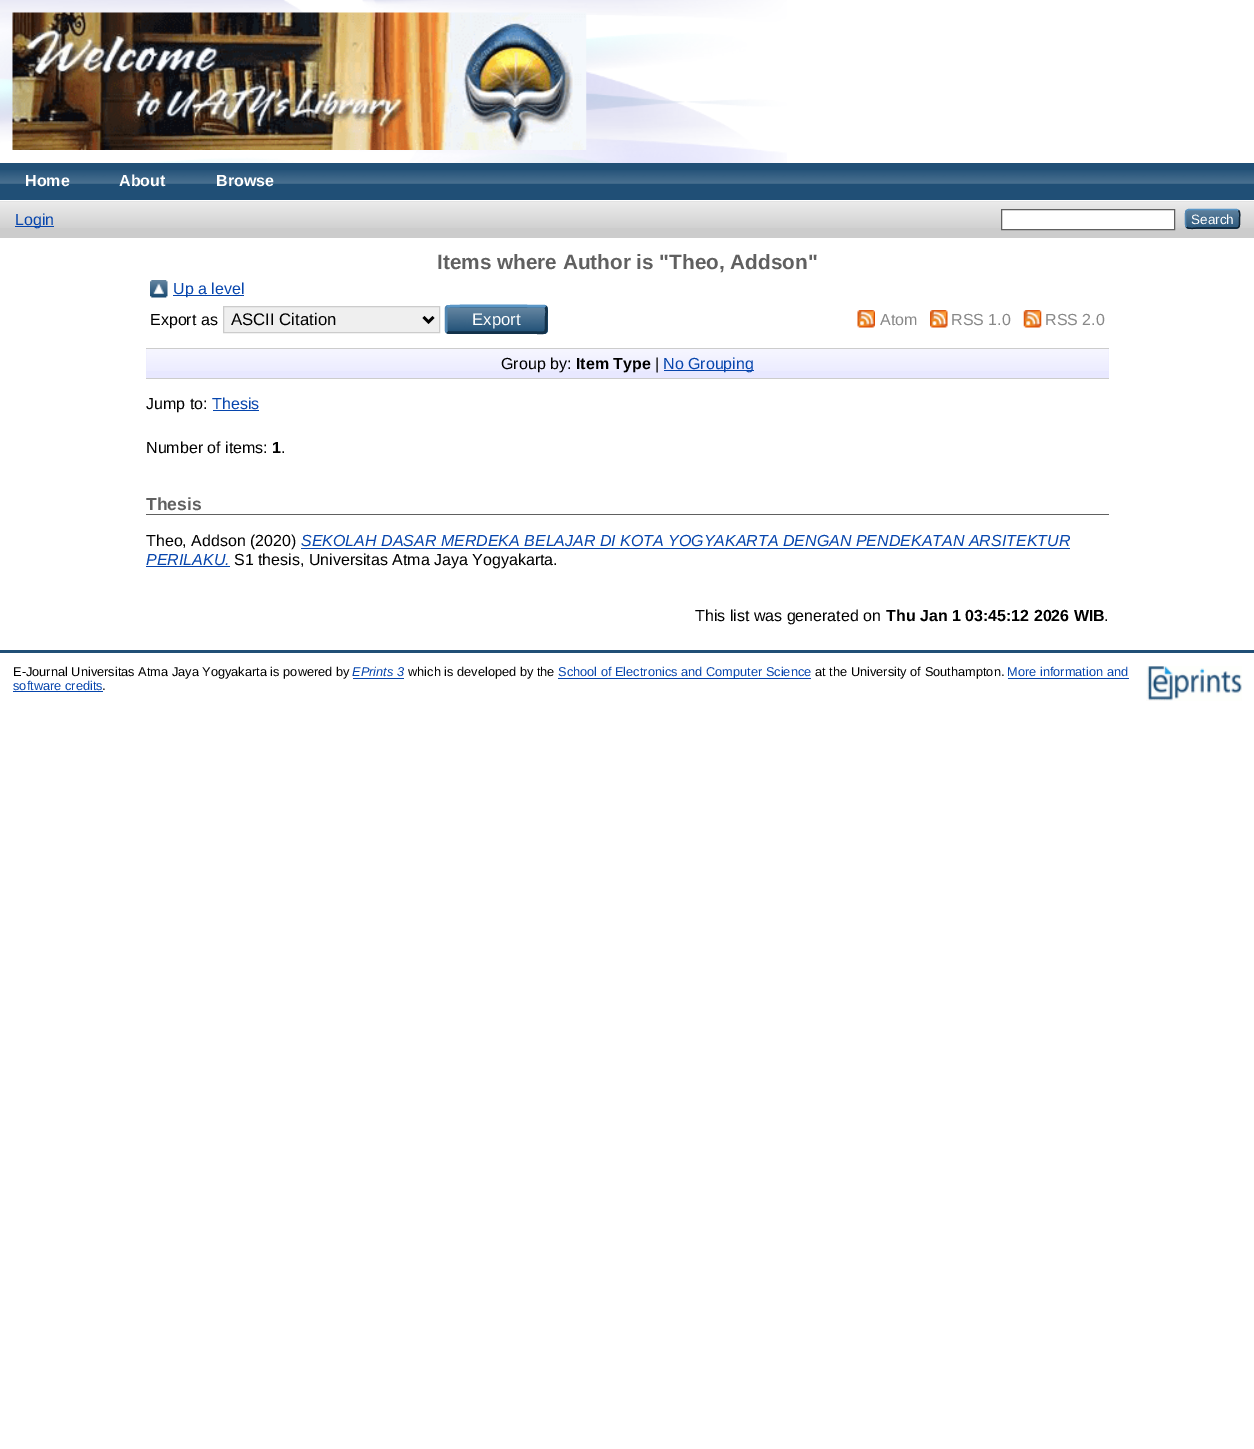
%!PS
<< /PageSize [1254 1449] >> setpagedevice
/rgb { 3 { 255 div 3 1 roll } repeat setrgbcolor } def
/font { [ exch dup neg 0 0 3 -1 roll 0 0 ] selectfont } def
/text { moveto show } def
/roundrect { 5 dict begin { /r /h /w /y /x } { exch def } forall
  x r add y moveto x w add y 2 copy h add r arct x w add y h add x 1 index r arct
  x y h add x y r arct x y 2 copy exch w add exch r arct closepath end } def
/picture { 5 dict begin { /h /w /y /x /name } { exch def } forall
  gsave x y translate w h scale
  w h 8 [w 0 0 h 0 0] name (r) file false 3 colorimage grestore end } def
0 1449 translate 1 -1 scale
4 setmiterlimit
255 255 255 rgb
0 0 1254 1449 rectfill
(img_01.rgb) 0 0 787 163 picture
(img_02.rgb) 12 12 575 138 picture
32 79 118 rgb
0 163 1254 37 rectfill
(img_03.rgb) 0 170 1254 14 picture
204 204 204 rgb
0 201 1254 37 rectfill
(img_04.rgb) 0 201 1254 27 picture
6 69 173 rgb
15 226 39 1 rectfill
255 255 255 rgb
1001.5 209.5 moveto 173 0 rlineto 0 20 rlineto -173 0 rlineto closepath gsave fill grestore
96 96 96 rgb
stroke
31 79 118 rgb
1185 209 55 20 4 roundrect fill
(img_05.rgb) 1185 209 55 20 picture
91 151 199 rgb
1.2 setlinewidth
1186.5 210.5 moveto 2 -1 rlineto 48 0 rlineto 2 1 rlineto stroke
13 33 49 rgb
1238.5 210.5 moveto 2 2 1 6 1 8.5 rcurveto 0 10.5 0.5 9 -11 9 rcurveto -32 0 rlineto -0.5 0 -8 1.5 -10 -1 rcurveto stroke
82 135 179 rgb
1186.5 227 moveto -1.5 -1.5 -1 -6 -1 -8 rcurveto 0 -2.5 -0.5 -7 1 -8.5 rcurveto stroke
(img_06.rgb) 150 280 18 18 picture
6 69 173 rgb
173 295 71 1 rectfill
239 239 239 rgb
223.5 306.5 moveto 216 0 rlineto 0 26 rlineto -216 0 rlineto closepath gsave fill grestore
204 204 204 rgb
1 setlinewidth
stroke
0 0 0 rgb
2.5 setlinewidth
423.5 317 moveto 5 5 rlineto 5 -5 rlineto stroke
31 79 118 rgb
445 305 103 29 4 roundrect fill
(img_07.rgb) 445 307 103 24 picture
91 151 199 rgb
447 307 moveto 0.5 -0.5 rlineto 2 -1 72 -0.5 80.5 -0.5 rcurveto 16 0 rlineto 1.5 1 rlineto stroke
19 50 74 rgb
545.5 307 moveto 2 2 0.5 10 0.5 12.5 rcurveto 0 17 2.5 13 -18 13 rcurveto -79 0 rlineto -2 -0.5 rlineto stroke
82 135 179 rgb
447 332 moveto -0.5 -0.5 -1 -1.5 -1 -2 rcurveto 0 -21 rlineto 0 -1 0.5 -1.5 1 -2 rcurveto stroke
(img_08.rgb) 857 310 18 18 picture
(img_09.rgb) 930 310 18 18 picture
(img_10.rgb) 1023 310 19 18 picture
232 232 255 rgb
146 349 963 29 rectfill
(img_11.rgb) 146 349 963 22 picture
204 204 204 rgb
146 348 963 1 rectfill
146 378 963 1 rectfill
6 69 173 rgb
664 370 90 1 rectfill
213 410 46 1 rectfill
96 96 96 rgb
146 514 963 1 rectfill
6 69 173 rgb
301 548 769 1 rectfill
146 566 84 1 rectfill
32 79 118 rgb
0 650 1254 3 rectfill
6 69 173 rgb
353 678 51 1 rectfill
558 678 253 1 rectfill
1008 678 121 1 rectfill
13 691 90 1 rectfill
(img_12.rgb) 1146 666 96 35 picture
/LiberationSans-Bold 16 font
255 255 255 rgb
(Home) 25 186 text
(About) 119 186 text
(Browse) 216 186 text
/LiberationSans-Regular 16 font
6 69 173 rgb
(Login) 15 225 text
/LiberationSans-Regular 13.5 font
255 255 255 rgb
(Search) 1191 224 text
/LiberationSans-Bold 20.75 font
96 96 96 rgb
(Items where Author is "Theo, Addson) 437 269 text
(") 808 269 text
/LiberationSans-Regular 16 font
6 69 173 rgb
(Up a level) 173 294 text
0 0 0 rgb
(Export as) 150 325 text
/LiberationSans-Regular 16.75 font
(ASCII Citation) 231 325 text
255 255 255 rgb
(Export) 472 325 text
/LiberationSans-Regular 16 font
136 136 136 rgb
(Atom) 880 325 text
(RSS 1.0) 951 325 text
(RSS 2.0) 1045 325 text
0 0 0 rgb
(Group by:) 501 369 text
/LiberationSans-Bold 16 font
(Item Type) 576 369 text
/LiberationSans-Regular 16 font
(|) 655 369 text
6 69 173 rgb
(No Grouping) 663 369 text
0 0 0 rgb
(Jump to:) 146 409 text
6 69 173 rgb
(Thesis) 212 409 text
0 0 0 rgb
(Number of items:) 146 453 text
/LiberationSans-Bold 16 font
(1) 272 453 text
/LiberationSans-Regular 16 font
(.) 281 453 text
/LiberationSans-Bold 17.5 font
96 96 96 rgb
(Thesis) 146 510 text
/LiberationSans-Regular 16 font
0 0 0 rgb
(Theo, Addson \(2020\)) 146 546 text
/LiberationSans-Italic 16 font
6 69 173 rgb
(SEKOLAH DASAR MERDEKA BELAJAR DI KOTA YOGYAKARTA DENGAN PENDEKATAN ARSITEKTUR) 301 546 text
(PERILAKU.) 146 565 text
/LiberationSans-Regular 16 font
0 0 0 rgb
(S1 thesis, Universitas Atma Jaya Yogyakarta.) 234 565 text
(This list was generated on) 695 621 text
/LiberationSans-Bold 16 font
(Thu Jan 1 03:45:12 2026 WIB) 886 621 text
/LiberationSans-Regular 16 font
(.) 1104 621 text
/LiberationSans-Regular 12.8 font
(E-Journal Universitas Atma Jaya Yogyakarta is powered by) 13 676 text
/LiberationSans-Italic 12.8 font
6 69 173 rgb
(EPrints 3) 352 676 text
/LiberationSans-Regular 12.8 font
0 0 0 rgb
(which is developed by the) 408 676 text
6 69 173 rgb
(School of Electronics and Computer Science) 558 676 text
0 0 0 rgb
(at the University of Southampton.) 815 676 text
6 69 173 rgb
(More information and) 1007 676 text
(software credits) 13 690 text
0 0 0 rgb
(.) 102 690 text
showpage
